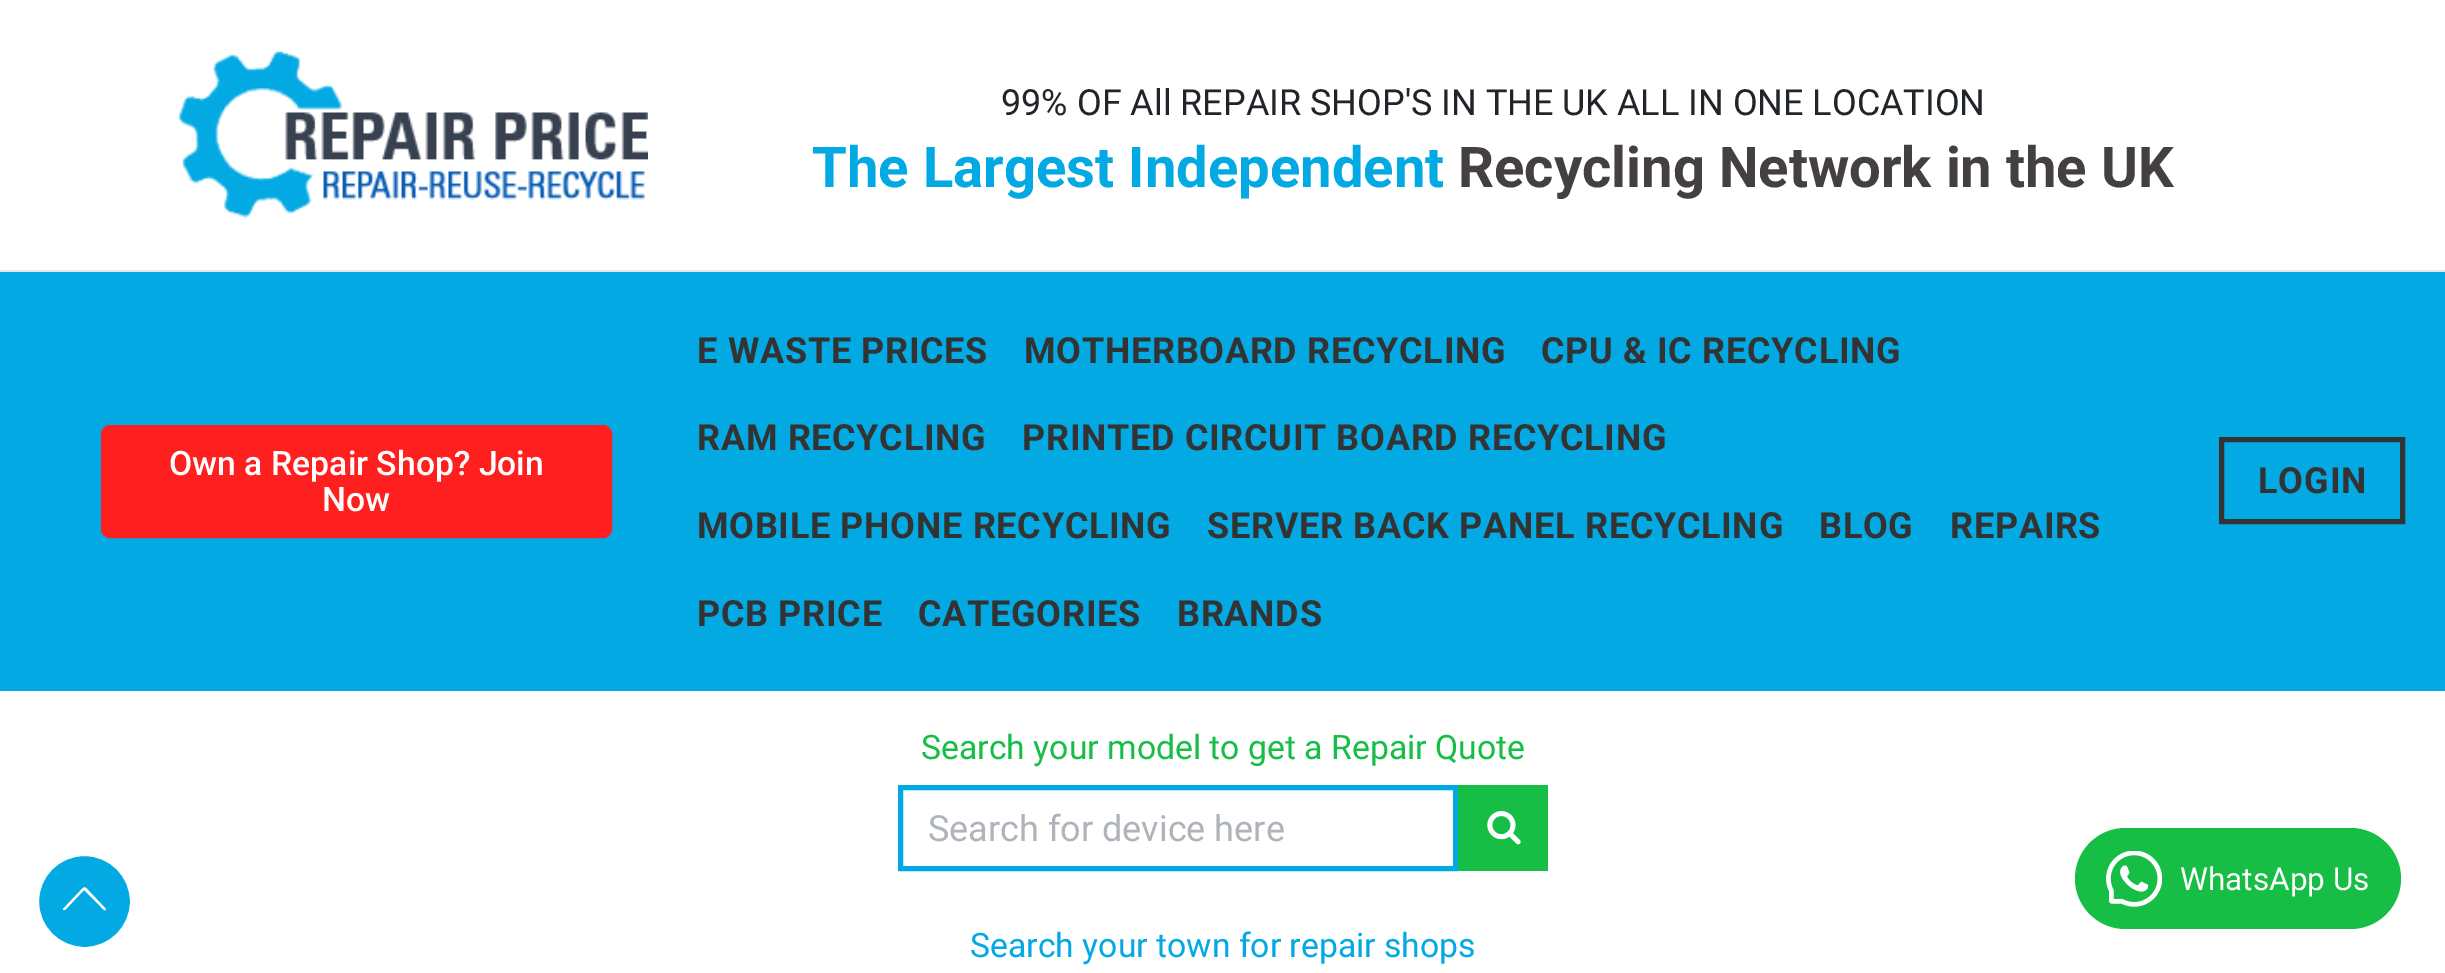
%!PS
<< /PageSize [2445 973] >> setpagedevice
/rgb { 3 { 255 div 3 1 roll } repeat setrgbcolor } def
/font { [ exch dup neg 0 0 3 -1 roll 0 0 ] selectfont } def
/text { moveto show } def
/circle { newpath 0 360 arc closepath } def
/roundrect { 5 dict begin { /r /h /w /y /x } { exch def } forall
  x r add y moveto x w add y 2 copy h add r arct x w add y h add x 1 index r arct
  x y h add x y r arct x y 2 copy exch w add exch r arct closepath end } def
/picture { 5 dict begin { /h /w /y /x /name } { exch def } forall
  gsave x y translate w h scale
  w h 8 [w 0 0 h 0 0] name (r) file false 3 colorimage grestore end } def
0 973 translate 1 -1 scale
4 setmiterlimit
255 255 255 rgb
0 0 2445 973 rectfill
230 230 230 rgb
0 270 2445 2 rectfill
(img_01.rgb) 178 51 470 168 picture
3 169 227 rgb
0 272 2445 419 rectfill
255 31 31 rgb
102 426 509 111 8 roundrect gsave fill grestore
2 setlinewidth
stroke
51 51 51 rgb
5 setlinewidth
2221.5 439.5 181 82 rectstroke
3 169 227 rgb
84.5 901.5 48 circle gsave fill grestore
255 255 255 rgb
stroke
63 909 moveto 0 1 1 1 2 1 rcurveto 19 -20 rlineto 17 17 rlineto 1 1 3 4 5 3 rcurveto -1 -2 rlineto -16 -17 rlineto -5 -5 -4 -5 -9 0 rcurveto closepath fill
0 169 227 rgb
900.5 787.5 555 81 rectstroke
22 190 69 rgb
1458 785 90 86 rectfill
(img_02.rgb) 1487 811 34 34 picture
2075 828 326 101 50.5 roundrect fill
(img_03.rgb) 2106 851 56 56 picture
/Roboto-Regular 36 font
33 37 41 rgb
(99% OF All REPAIR SHOP'S IN THE UK ALL IN ONE LOCATION) 1001 115 text
/Roboto-Bold 56.25 font
3 169 227 rgb
(The Largest Independent) 812 187 text
67 64 63 rgb
(Recycling Network in the UK) 1458 187 text
/Roboto-Medium 33.75 font
255 255 255 rgb
(Own a Repair Shop? Join) 169 475 text
(Now) 322 511 text
/Roboto-Bold 36 font
51 51 51 rgb
697 363 moveto 0.7 0 (E WASTE PRICES) ashow
1024 363 moveto 0.7 0 (MOTHERBOARD RECYCLING) ashow
1541 363 moveto 0.7 0 (CPU & IC RECYCLING) ashow
697 450 moveto 0.7 0 (RAM RECYCLING) ashow
1022 450 moveto 0.7 0 (PRINTED CIRCUIT BOARD RECYCLING) ashow
697 538 moveto 0.7 0 (MOBILE PHONE RECYCLING) ashow
1207 538 moveto 0.7 0 (SERVER BACK PANEL RECYCLING) ashow
1819 538 moveto 0.7 0 (BLOG) ashow
1950 538 moveto 0.7 0 (REPAIRS) ashow
697 626 moveto 0.7 0 (PCB PRICE) ashow
918 626 moveto 0.7 0 (CATEGORIES) ashow
1177 626 moveto 0.7 0 (BRANDS) ashow
2258 493 moveto 1 0 (LOGIN) ashow
/Roboto-Regular 33.75 font
22 190 69 rgb
(Search your model to get a Repair Quote) 921 759 text
/Roboto-Regular 36 font
174 180 185 rgb
(Search for device here) 928 841 text
/Roboto-Regular 33.75 font
3 169 227 rgb
(Search your town for repair shops) 970 957 text
/Roboto-Regular 31.5 font
255 255 255 rgb
(WhatsApp Us) 2180 890 text
showpage
